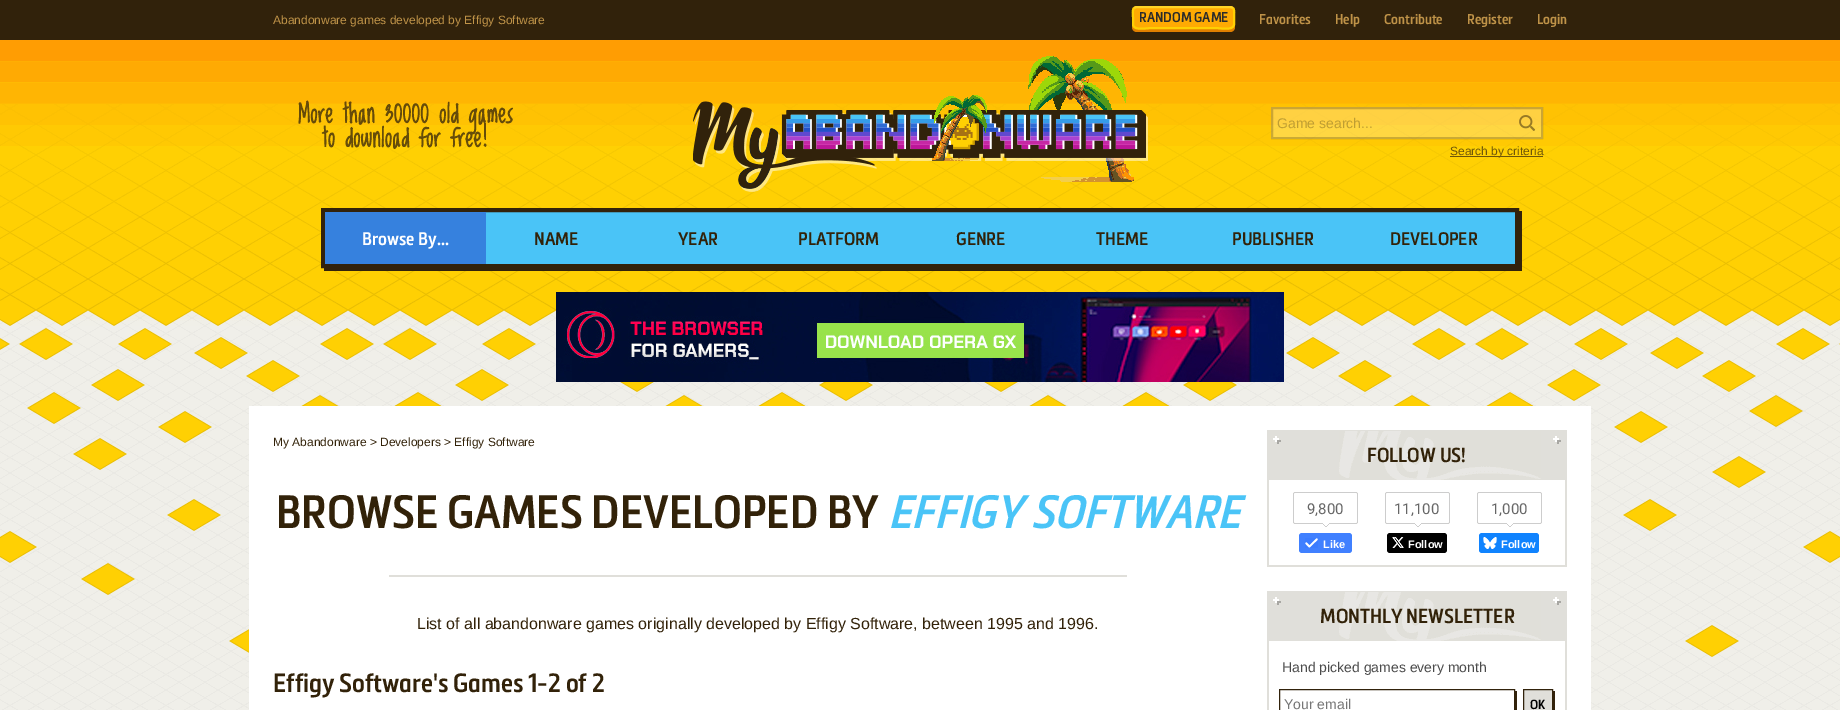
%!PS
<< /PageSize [1840 710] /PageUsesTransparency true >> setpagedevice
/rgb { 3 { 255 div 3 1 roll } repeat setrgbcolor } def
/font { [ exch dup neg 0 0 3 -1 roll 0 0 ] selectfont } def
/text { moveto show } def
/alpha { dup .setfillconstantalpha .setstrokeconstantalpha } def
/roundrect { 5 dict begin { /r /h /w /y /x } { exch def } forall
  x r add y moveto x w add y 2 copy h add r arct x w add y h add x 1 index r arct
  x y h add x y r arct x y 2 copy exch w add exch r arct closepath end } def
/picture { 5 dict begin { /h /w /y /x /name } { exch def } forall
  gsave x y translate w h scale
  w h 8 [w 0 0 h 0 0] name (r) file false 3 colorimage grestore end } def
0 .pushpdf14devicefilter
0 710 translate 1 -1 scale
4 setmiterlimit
255 255 255 rgb
0 0 1840 710 rectfill
(img_01.rgb) 0 0 1840 710 picture
225 128 0 rgb
1132 24 moveto 0 3 rlineto 0 3 2 5 5 5 rcurveto 93 0 rlineto 3 0 5 -2 5 -5 rcurveto 0 -3 rlineto 0 3 -2 5 -5 5 rcurveto -93 0 rlineto -3 0 -5 -2 -5 -5 rcurveto closepath fill
255 170 3 rgb
1132 6 103 23 5 roundrect fill
255 213 37 rgb
2 setlinewidth
1134 8 moveto 2.5 -1 rlineto 94 0 rlineto 2.5 1 rlineto stroke
255 208 3 rgb
1233 8 moveto 2 2.5 1 7 1 9.5 rcurveto 0 7.5 rlineto -1.5 6 -13.5 3 -19.5 3 rcurveto -62 0 rlineto -6 0 -18 3 -19.5 -3 rcurveto 0 -7.5 rlineto 0 -2.5 -1 -7 1 -9.5 rcurveto stroke
(img_02.rgb) 298 100 215 49 picture
(img_03.rgb) 693 56 455 136 picture
0.25 alpha
255 255 255 rgb
1271 107 272 32 rectfill
49 34 11 rgb
1272 108 270 30 rectstroke
1 alpha
(img_04.rgb) 1519 115 16 16 picture
0.7 alpha
1450 156 93 1 rectfill
1 alpha
50 34 11 rgb
324 268 moveto 0 3 rlineto 1198 0 rlineto 0 -60 rlineto -3 0 rlineto 0 57 rlineto closepath fill
74 196 247 rgb
486 212 1029 52 rectfill
50 34 11 rgb
4 setlinewidth
323 210 1194 56 rectstroke
54 129 222 rgb
325 212 161 52 rectfill
(img_05.rgb) 556 292 728 90 picture
255 255 255 rgb
249 406 1342 304 rectfill
224 223 218 rgb
389 575 738 2 rectfill
1267 430 300 50 rectfill
(img_06.rgb) 1339 431 202 49 picture
(img_07.rgb) 1273 436 8 8 picture
(img_07.rgb) 1553 436 8 8 picture
1565 480 2 87 rectfill
1267 565 300 2 rectfill
1267 480 2 87 rectfill
(img_08.rgb) 1293 492 65 35 picture
64 128 255 rgb
1299 533 53 20 3 roundrect fill
(img_09.rgb) 1305 538 13 10 picture
(img_08.rgb) 1385 492 65 35 picture
0 0 0 rgb
1387 533 60 20 3 roundrect fill
(img_10.rgb) 1392 537 12 11 picture
(img_08.rgb) 1477 492 65 35 picture
16 131 254 rgb
1479 533 60 20 3 roundrect fill
(img_11.rgb) 1483 537 14 12 picture
224 223 218 rgb
1267 591 300 50 rectfill
(img_06.rgb) 1339 592 202 49 picture
(img_07.rgb) 1273 597 8 8 picture
(img_07.rgb) 1553 597 8 8 picture
1565 641 2 69 rectfill
1267 641 2 69 rectfill
50 34 11 rgb
1281 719 moveto 0 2 rlineto 236 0 rlineto 0 -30 rlineto -2 0 rlineto 0 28 rlineto closepath fill
49 34 11 rgb
1 setlinewidth
1279.5 689.5 235 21 rectstroke
50 34 11 rgb
1525 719 moveto 0 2 rlineto 30 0 rlineto 0 -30 rlineto -2 0 rlineto 0 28 rlineto closepath fill
224 223 218 rgb
1523.5 689.5 moveto 29 0 rlineto 0 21 rlineto -29 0 rlineto closepath gsave fill grestore
49 34 11 rgb
stroke
/LiberationSans-Regular 12 font
191 147 72 rgb
(Abandonware games developed by Effigy Software) 273 24 text
/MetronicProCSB-Regular 14 font
43 43 43 rgb
(RANDOM GAME) 1139 22 text
191 147 72 rgb
(Favorites) 1259 24 text
(Help) 1335 24 text
(Contribute) 1384 24 text
(Register) 1467 24 text
(Login) 1537 24 text
/LiberationSans-Regular 14 font
191 158 50 rgb
(Game search...) 1277 128 text
/LiberationSans-Regular 12 font
110 86 9 rgb
(Search by criteria) 1450 155 text
/MetronicProCSB-Regular 18 font
255 255 255 rgb
(Browse By...) 362 245 text
50 34 9 rgb
(NAME) 534 245 text
(YEAR) 678 245 text
(PLATFORM) 798 245 text
(GENRE) 956 245 text
(THEME) 1096 245 text
(PUBLISHER) 1232 245 text
(DEVELOPER) 1390 245 text
/LiberationSans-Regular 12 font
(My Abandonware > Developers > Effigy Software) 273 446 text
/MetronicProCSB-Regular 46 font
(BROWSE GAMES DEVELOPED BY) 276 528 text
/MetronicProCSB-Italic 46 font
74 196 247 rgb
(EFFIGY SOFTWARE) 888 528 text
/LiberationSans-Regular 16 font
50 34 9 rgb
(List of all abandonware games originally developed by Effigy Software, between 1995 and 1996.) 417 629 text
/MetronicProCSB-Regular 26 font
(Effigy Software's Games 1-2 of 2) 273 692 text
/MetronicProCSB-Regular 20 font
(FOLLOW US!) 1367 462 text
/Roboto-Regular 15 font
102 102 102 rgb
(9,800) 1307 514 text
/LiberationSans-Bold 11 font
255 255 255 rgb
(Like) 1323 548 text
/Roboto-Regular 15 font
102 102 102 rgb
(11,100) 1394 514 text
/LiberationSans-Bold 11 font
255 255 255 rgb
(Follow) 1408 548 text
/Roboto-Regular 15 font
102 102 102 rgb
(1,000) 1491 514 text
/LiberationSans-Bold 11 font
255 255 255 rgb
(Follow) 1501 548 text
/MetronicProCSB-Regular 20 font
50 34 9 rgb
(MONTHLY NEWSLETTER) 1320 623 text
/LiberationSans-Regular 14 font
75 75 75 rgb
(Hand picked games every month) 1282 672 text
117 117 117 rgb
(Your email) 1284 709 text
/MetronicProCSB-Regular 13 font
0 0 0 rgb
(OK) 1530 709 text
.poppdf14devicefilter showpage
